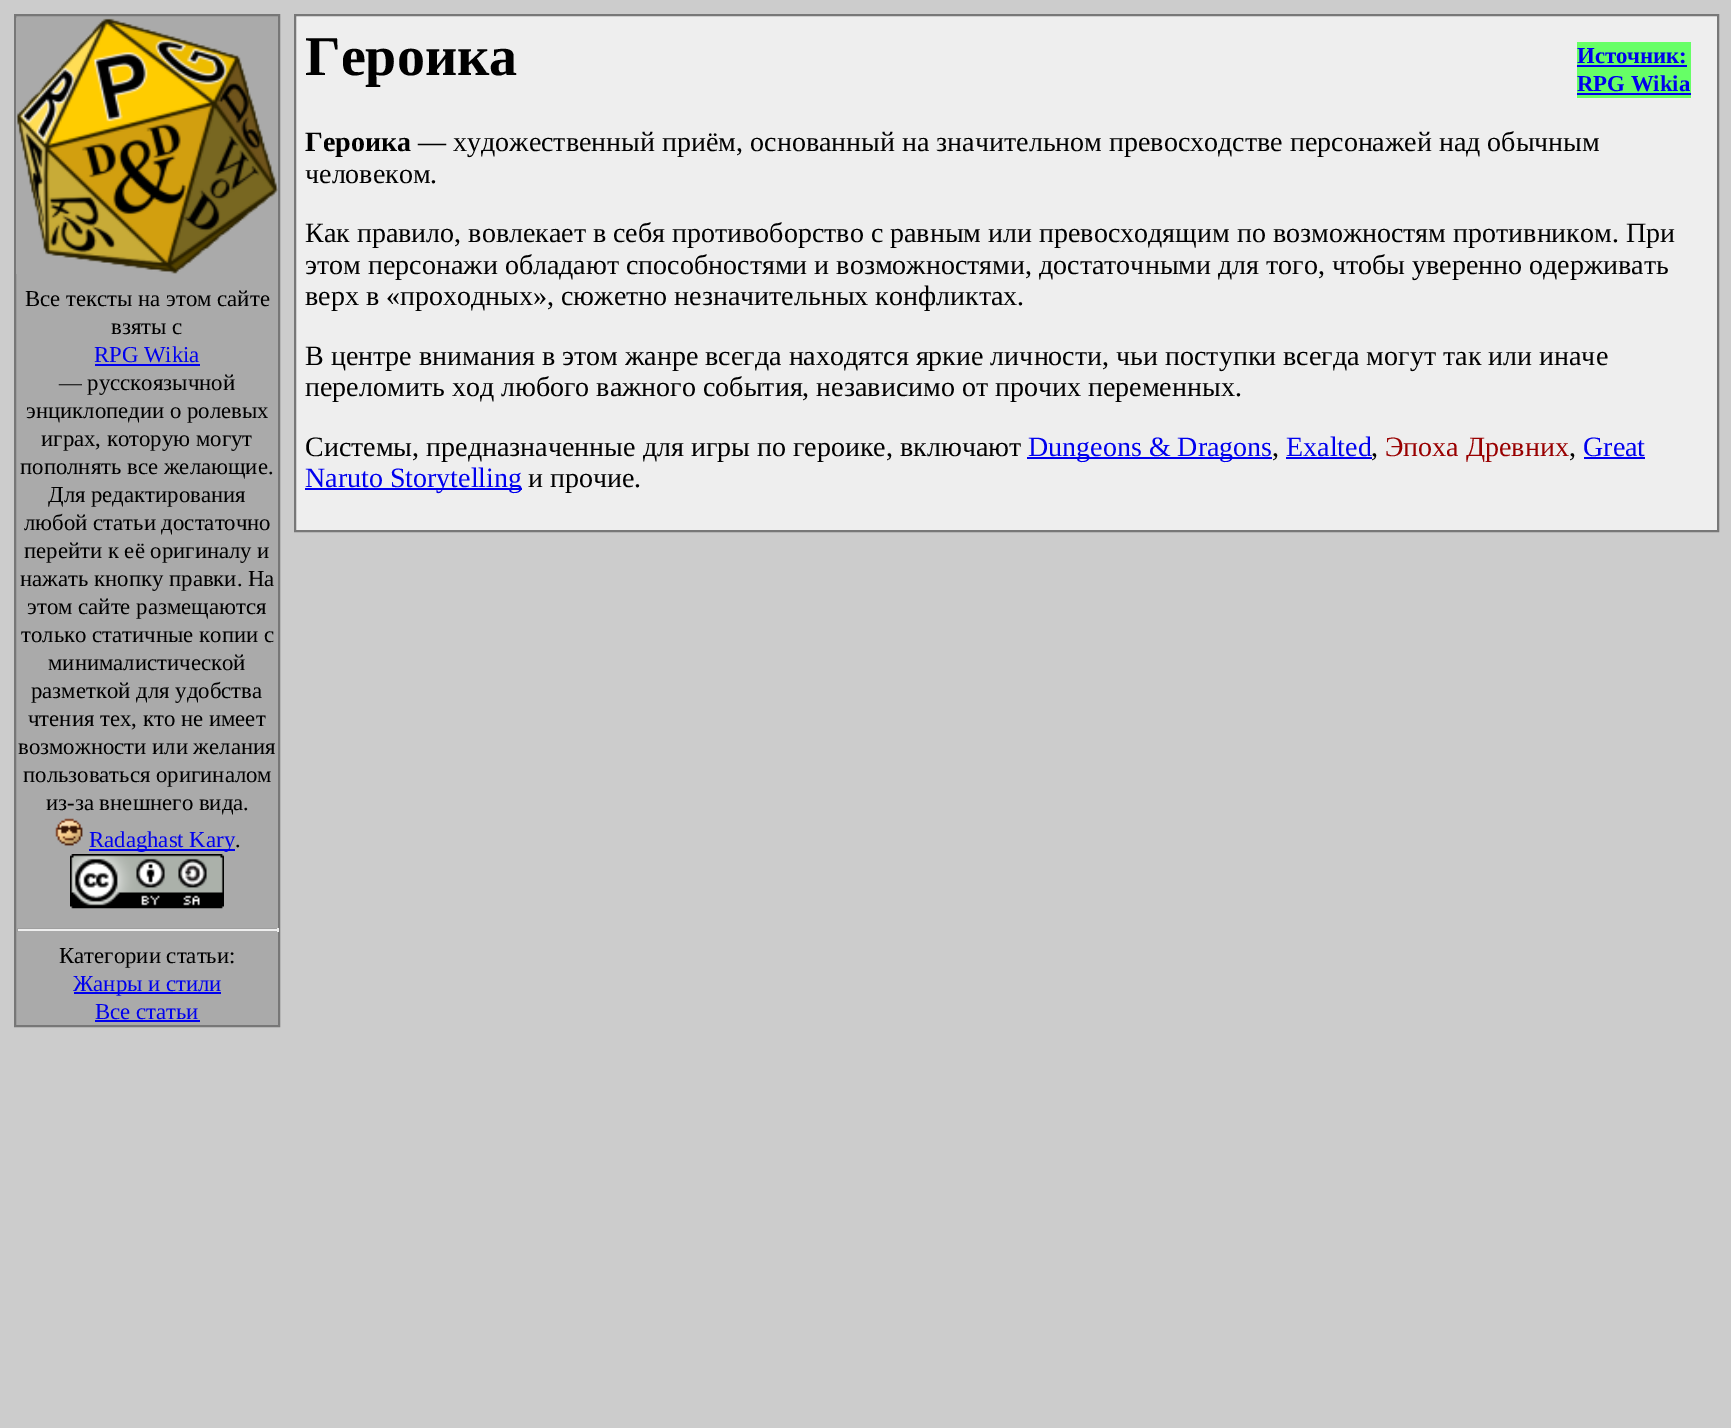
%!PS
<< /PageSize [1731 1428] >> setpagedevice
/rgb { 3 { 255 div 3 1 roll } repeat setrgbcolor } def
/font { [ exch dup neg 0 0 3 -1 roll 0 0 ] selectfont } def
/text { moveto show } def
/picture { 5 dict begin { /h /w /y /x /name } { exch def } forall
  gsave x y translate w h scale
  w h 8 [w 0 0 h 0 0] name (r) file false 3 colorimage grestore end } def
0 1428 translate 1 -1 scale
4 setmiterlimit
204 204 204 rgb
0 0 1731 1428 rectfill
170 170 170 rgb
15 15 moveto 264 0 rlineto 0 1011 rlineto -264 0 rlineto closepath gsave fill grestore
119 119 119 rgb
2 setlinewidth
stroke
(img_01.rgb) 16 18 262 256 picture
0 0 238 rgb
95 364 105 2 rectfill
(img_02.rgb) 55 818 28 28 picture
89 849 146 2 rectfill
(img_03.rgb) 70 854 154 55 picture
159 159 159 rgb
16 928 262 1 rectfill
238 238 238 rgb
277 928 2 4 rectfill
16 929 262 2 rectfill
159 159 159 rgb
16 928 2 4 rectfill
0 0 238 rgb
74 992 147 2 rectfill
95 1020 105 2 rectfill
238 238 238 rgb
295 15 moveto 1423 0 rlineto 0 516 rlineto -1423 0 rlineto closepath gsave fill grestore
119 119 119 rgb
stroke
102 255 102 rgb
1577 42 114 56 rectfill
0 0 238 rgb
1577 65 110 2 rectfill
1577 93 114 2 rectfill
1027 457 245 2 rectfill
1286 457 86 2 rectfill
1584 457 61 2 rectfill
305 488 217 2 rectfill
/LiberationSerif-Regular 22.75 font
0 0 0 rgb
(Все тексты на этом сайте) 25 306 text
(взяты с) 111 334 text
0 0 238 rgb
(RPG Wikia) 94 362 text
0 0 0 rgb
(— русскоязычной) 59 390 text
(энциклопедии о ролевых) 26 418 text
(играх, которую могут) 41 446 text
(пополнять все желающие.) 20 474 text
(Для редактирования) 48 502 text
(любой статьи достаточно) 24 530 text
(перейти к её оригиналу и) 24 558 text
(нажать кнопку правки. На) 20 586 text
(этом сайте размещаются) 27 614 text
(только статичные копии с) 21 642 text
(минималистической) 48 670 text
(разметкой для удобства) 31 698 text
(чтения тех, кто не имеет) 28 726 text
(возможности или желания) 18 754 text
(пользоваться оригиналом) 23 782 text
(из-за внешнего вида.) 46 810 text
0 0 238 rgb
(Radaghast Kary) 89 847 text
0 0 0 rgb
(.) 235 847 text
(Категории статьи:) 59 963 text
0 0 238 rgb
(Жанры и стили) 73 991 text
(Все статьи) 95 1019 text
/LiberationSerif-Bold 56 font
0 0 0 rgb
(Героика) 305 75 text
/LiberationSerif-Bold 22.75 font
0 0 238 rgb
(Источник:) 1577 63 text
(RPG Wikia) 1577 91 text
/LiberationSerif-Bold 28 font
0 0 0 rgb
(Героика) 305 151 text
/LiberationSerif-Regular 28 font
(— художественный приём, основанный на значительном превосходстве персонажей над обычным) 418 151 text
(человеком.) 305 183 text
(Как правило, вовлекает в себя противоборство с равным или превосходящим по возможностям противником. При) 305 242 text
(этом персонажи обладают способностями и возможностями, достаточными для того, чтобы уверенно одерживать) 305 274 text
(верх в «проходных», сюжетно незначительных конфликтах.) 305 305 text
(В центре внимания в этом жанре всегда находятся яркие личности, чьи поступки всегда могут так или иначе) 305 365 text
(переломить ход любого важного события, независимо от прочих переменных.) 305 396 text
(Системы, предназначенные для игры по героике, включают) 305 456 text
0 0 238 rgb
(Dungeons & Dragons) 1028 456 text
0 0 0 rgb
(,) 1272 456 text
0 0 238 rgb
(Exalted) 1286 456 text
0 0 0 rgb
(,) 1371 456 text
153 0 0 rgb
(Эпоха Древних) 1385 456 text
0 0 0 rgb
(,) 1569 456 text
0 0 238 rgb
(Great) 1583 456 text
(Naruto Storytelling) 305 487 text
0 0 0 rgb
(и прочие.) 528 487 text
showpage
